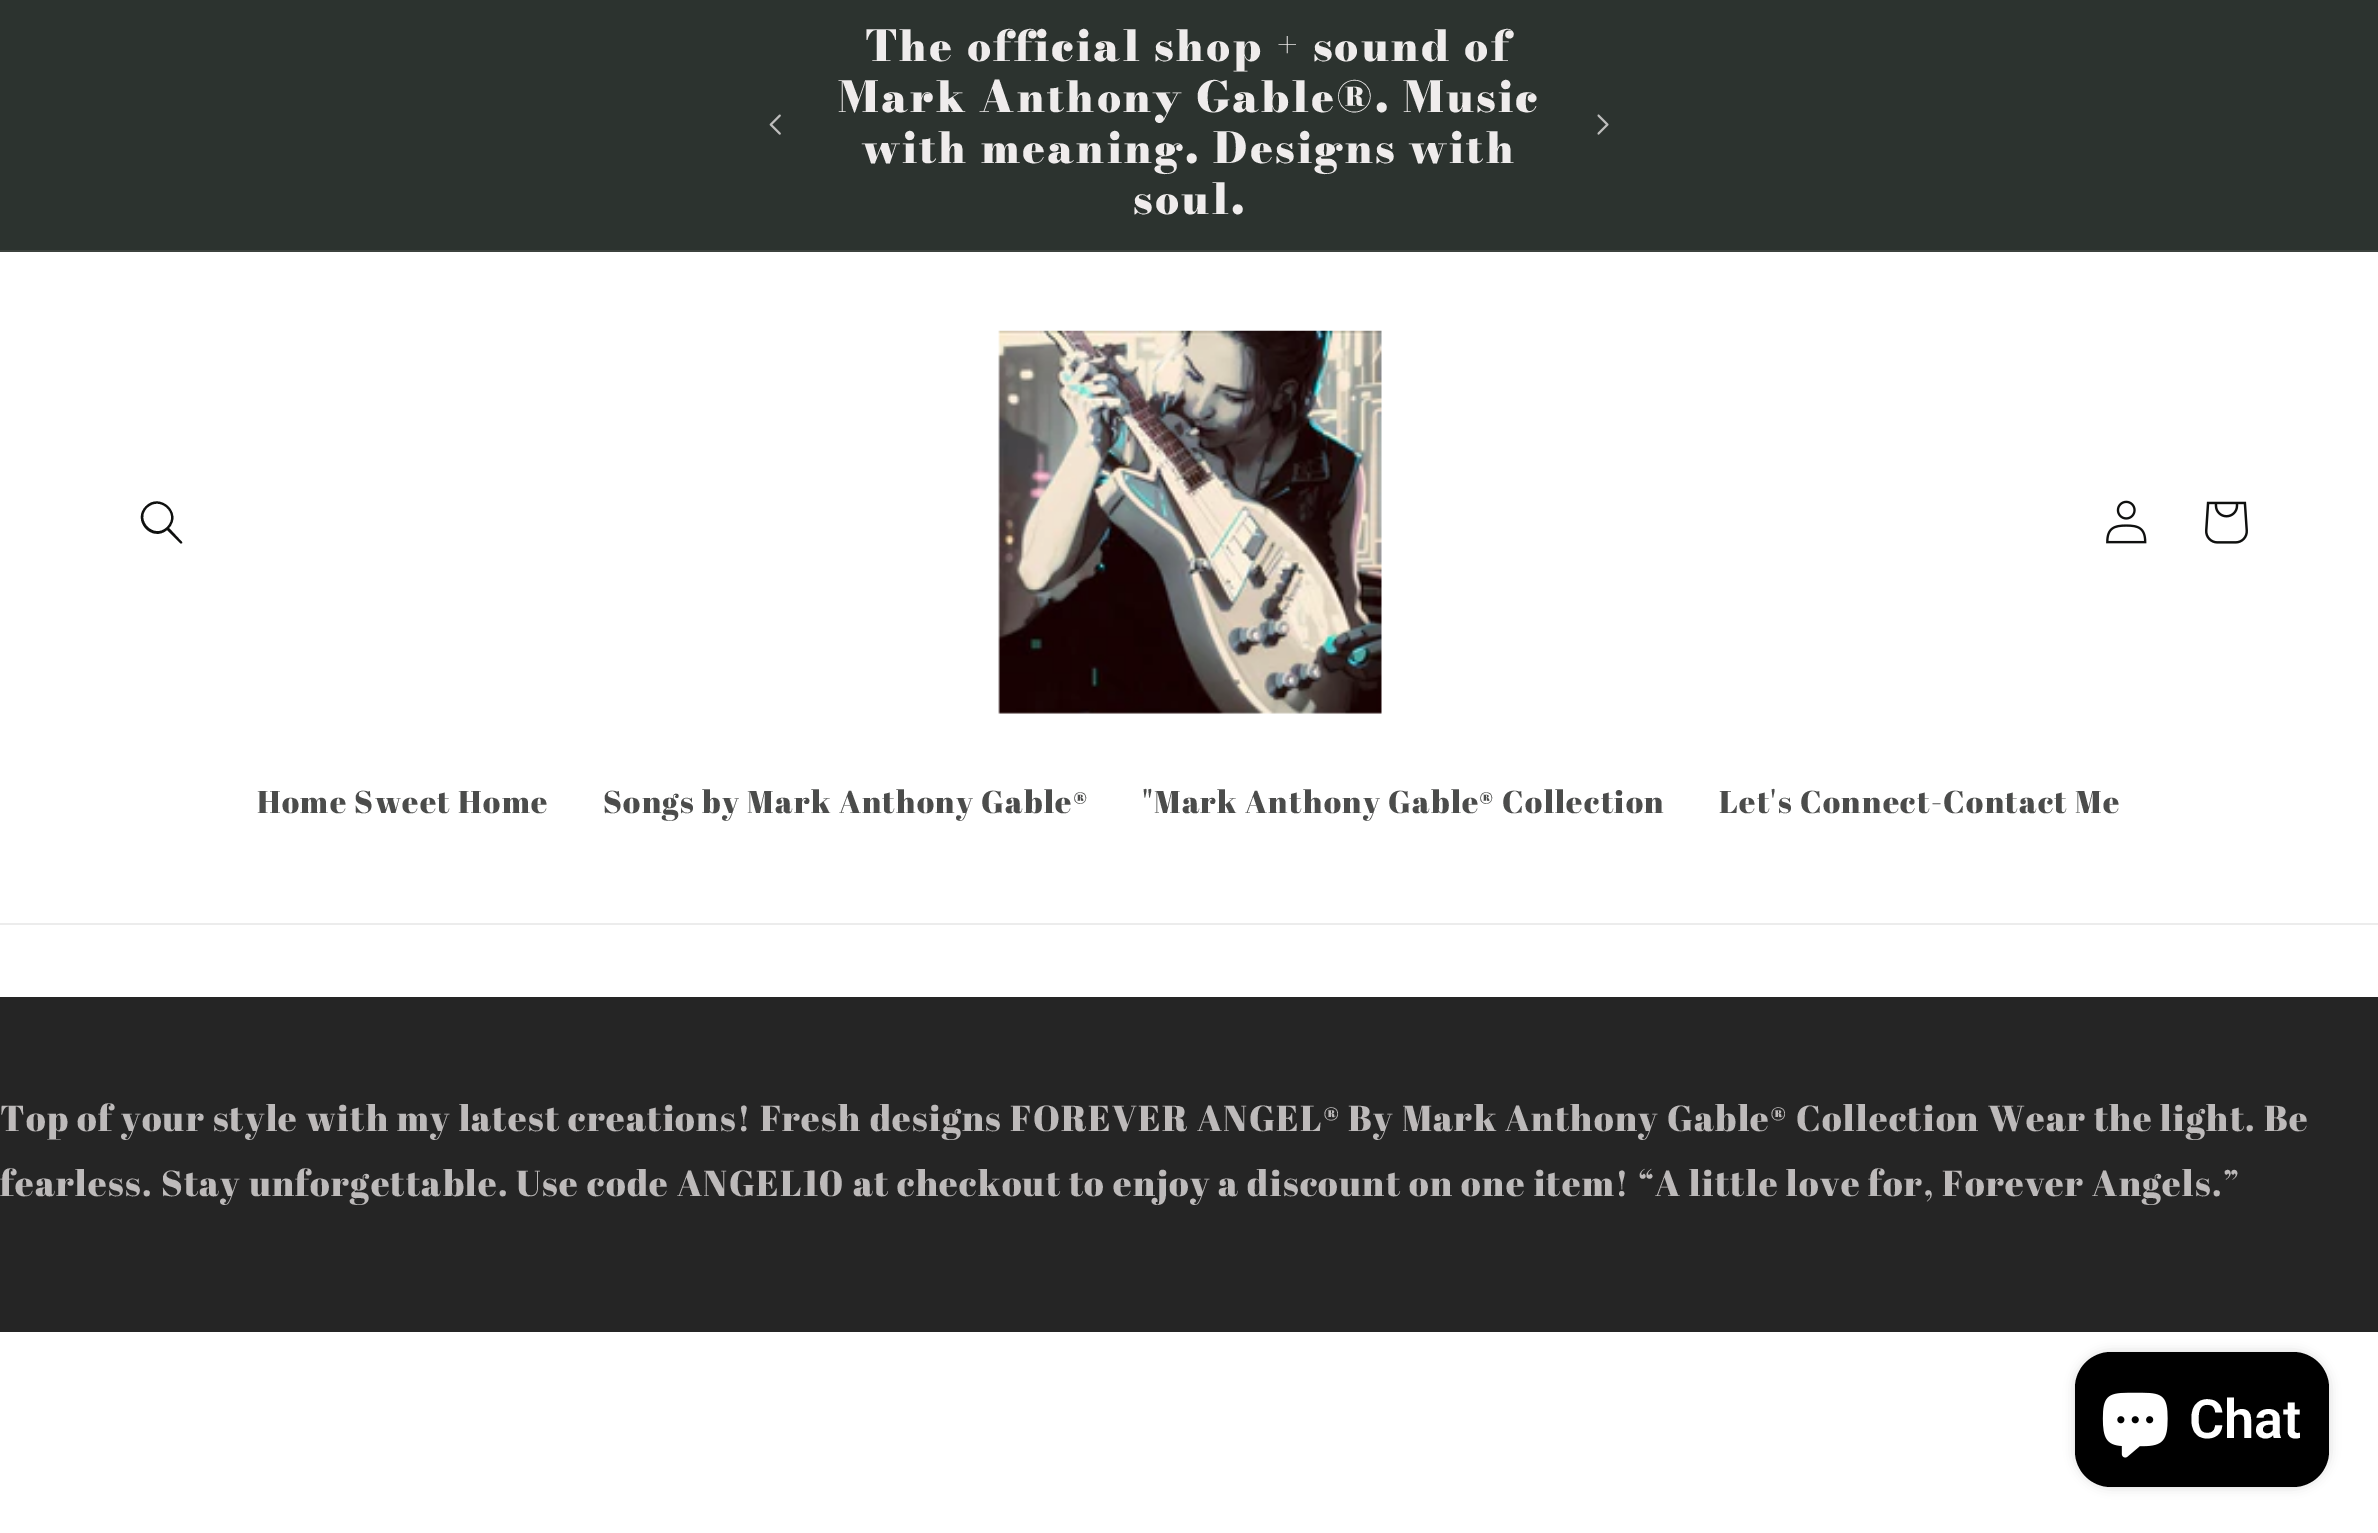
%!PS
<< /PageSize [2378 1533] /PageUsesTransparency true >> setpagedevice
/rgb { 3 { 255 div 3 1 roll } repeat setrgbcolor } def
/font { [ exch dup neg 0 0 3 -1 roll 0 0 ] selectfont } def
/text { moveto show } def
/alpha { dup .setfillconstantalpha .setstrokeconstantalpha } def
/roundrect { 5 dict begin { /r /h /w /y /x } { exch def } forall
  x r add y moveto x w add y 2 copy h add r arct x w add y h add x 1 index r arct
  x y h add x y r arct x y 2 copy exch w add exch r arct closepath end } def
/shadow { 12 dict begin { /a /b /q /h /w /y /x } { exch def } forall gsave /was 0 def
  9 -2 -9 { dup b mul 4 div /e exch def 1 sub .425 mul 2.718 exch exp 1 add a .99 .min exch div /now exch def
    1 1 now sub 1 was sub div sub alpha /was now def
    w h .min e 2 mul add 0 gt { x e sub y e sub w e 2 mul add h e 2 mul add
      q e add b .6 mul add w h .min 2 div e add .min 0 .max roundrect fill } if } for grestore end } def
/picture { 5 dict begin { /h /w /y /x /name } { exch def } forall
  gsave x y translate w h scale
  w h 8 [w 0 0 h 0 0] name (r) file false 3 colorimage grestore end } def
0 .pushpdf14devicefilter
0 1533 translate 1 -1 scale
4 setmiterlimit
255 255 255 rgb
0 0 2378 1533 rectfill
44 51 47 rgb
0 0 2378 250 rectfill
60 66 62 rgb
0 250 2378 2 rectfill
(img_01.rgb) 769 114 12 21 picture
(img_02.rgb) 1597 114 12 21 picture
236 236 236 rgb
0 923 2378 2 rectfill
15 16 15 rgb
167 527 moveto -13 13 -32 -7 -20 -19 rcurveto 13 -13 33 6 20 19 rcurveto 167 530 moveto -15 13 -36 -10 -21 -24 rcurveto 14 -14 37 7 23 22 rcurveto 13 14 rlineto 1 1 -1 2 -2 1 rcurveto closepath eofill
(img_03.rgb) 998 330 384 384 picture
(img_04.rgb) 2106 500 41 44 picture
(img_05.rgb) 2205 501 43 43 picture
37 37 37 rgb
0 997 2378 335 rectfill
0 0 0 rgb
2075 1352 254 135 36 5.5 0.15 shadow
2075 1352 254 135 36 roundrect fill
(img_06.rgb) 2102 1392 66 66 picture
/BodoniModa-Black 42.4 font
239 236 236 rgb
866 61 moveto -0.5 0 32 2.25 0 (The official shop + sound of) awidthshow
838 112 moveto -0.5 0 32 2.25 0 (Mark Anthony Gable®. Music) awidthshow
862 163 moveto -1 0 32 2.25 0 (with meaning. Designs with) awidthshow
1133 214 moveto 2.25 0 (soul.) ashow
/AbrilFatface-Regular 31.5 font
75 76 75 rgb
257 813 moveto 1.35 0 (Home Sweet Home) ashow
603 813 moveto 1.35 0 (Songs by Mark Anthony Gable®) ashow
1142 813 moveto 1.35 0 ("Mark Anthony Gable® Collection) ashow
1719 813 moveto 1.35 0 (Let's Connect-Contact Me) ashow
/AbrilFatface-Regular 36 font
189 186 186 rgb
0 1131 moveto 1.35 0 (Top of your style with my latest creations! Fresh designs FOREVER ANGEL® By Mark Anthony Gable® Collection Wear the light. Be) ashow
0 1196 moveto 1.35 0 (fearless. Stay unforgettable. Use code ANGEL10 at checkout to enjoy a discount on one item! “A little love for, Forever Angels.”) ashow
/Roboto-SemiBold 54 font
255 255 255 rgb
(Chat) 2189 1438 text
.poppdf14devicefilter showpage
